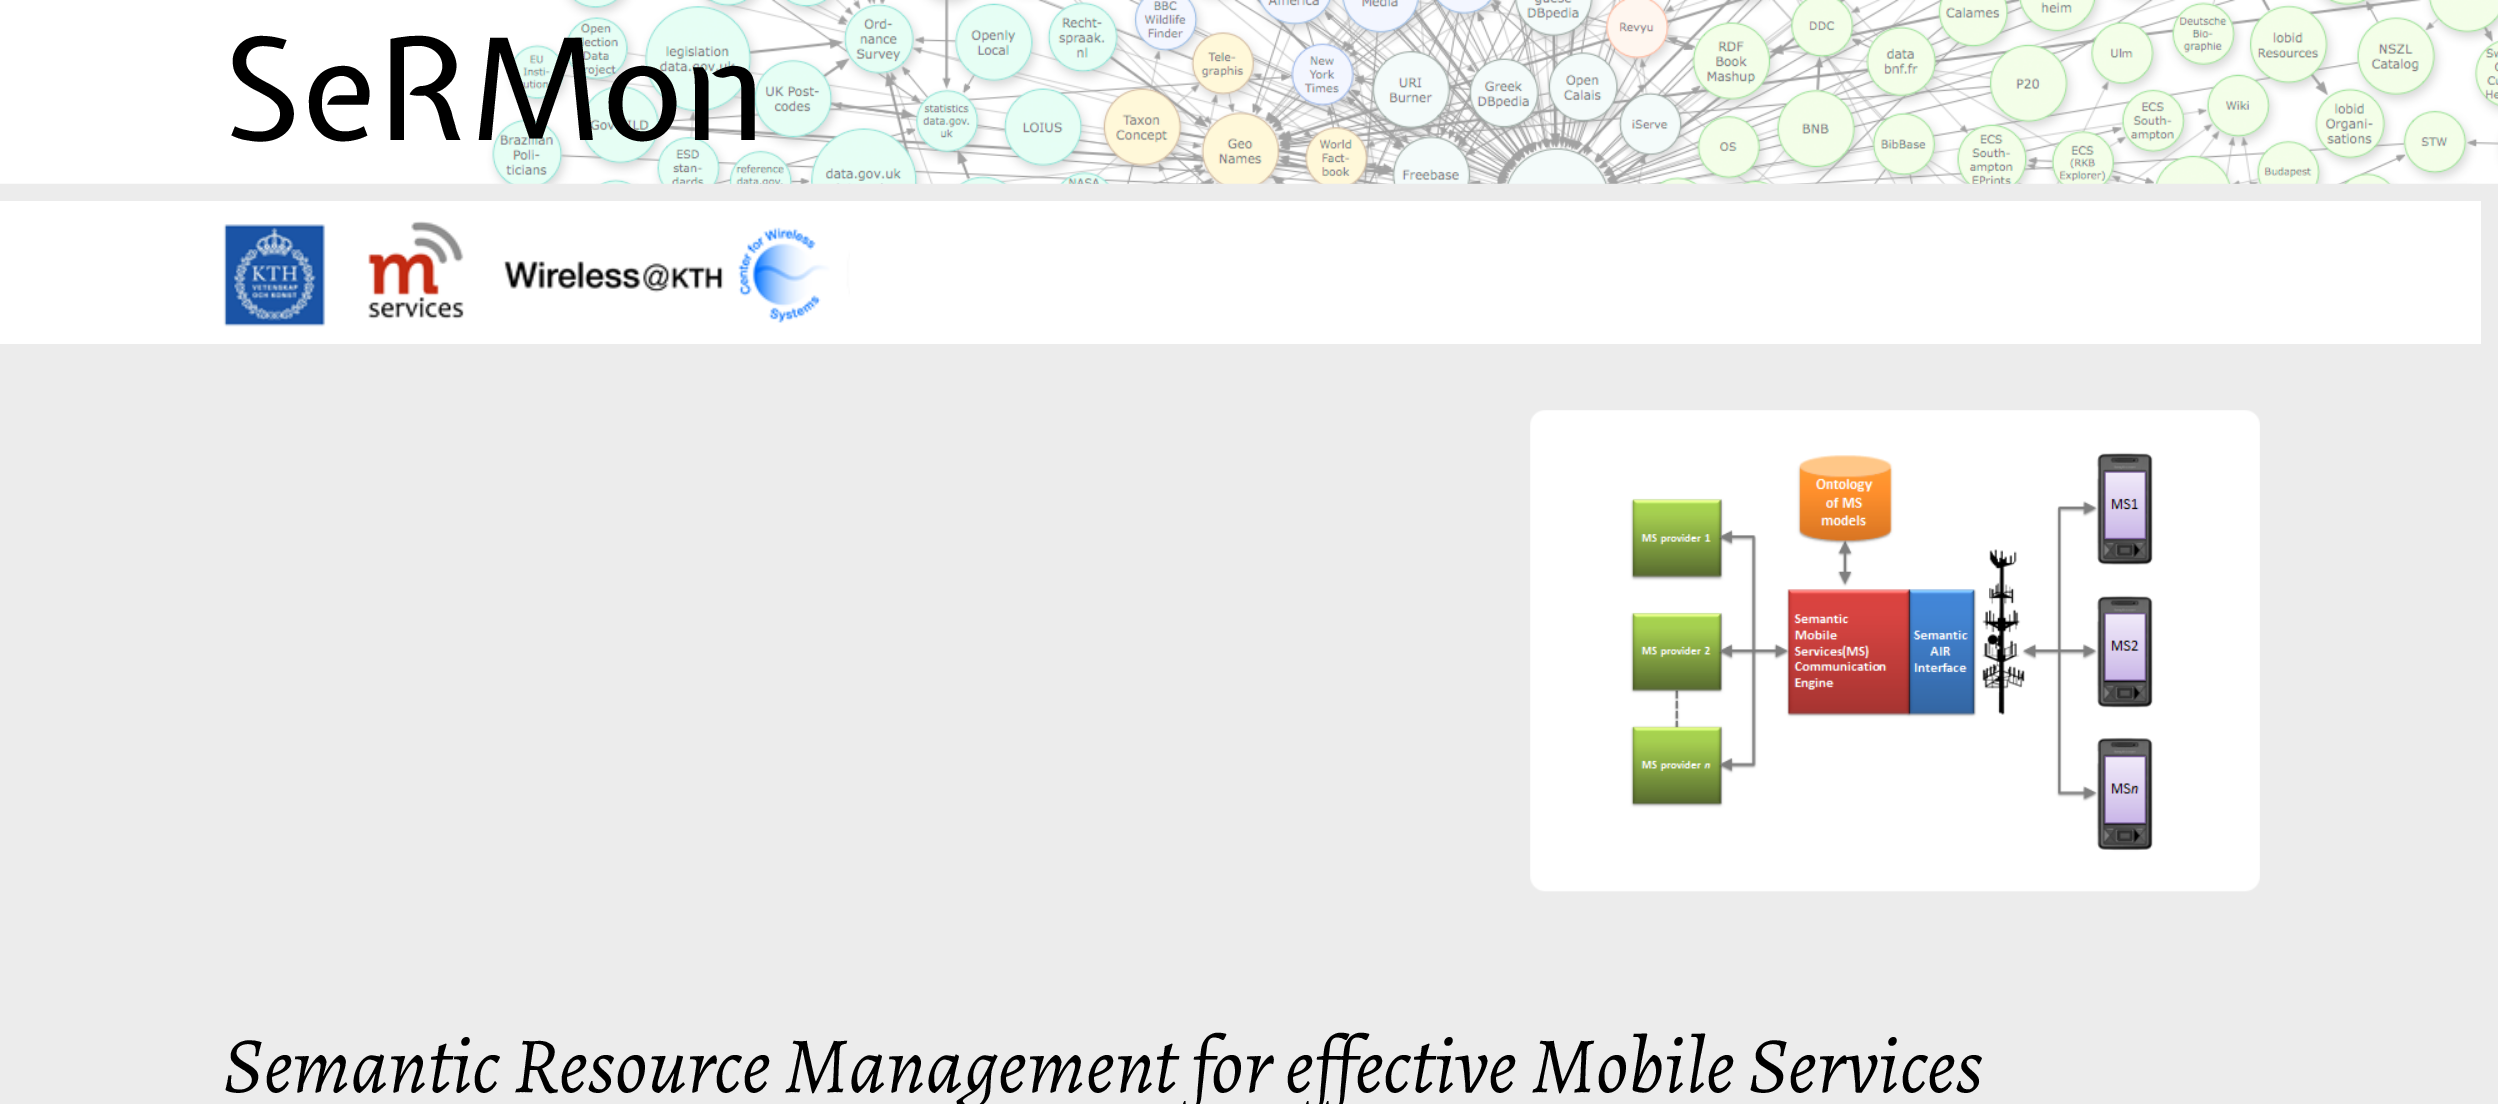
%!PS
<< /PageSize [2498 1104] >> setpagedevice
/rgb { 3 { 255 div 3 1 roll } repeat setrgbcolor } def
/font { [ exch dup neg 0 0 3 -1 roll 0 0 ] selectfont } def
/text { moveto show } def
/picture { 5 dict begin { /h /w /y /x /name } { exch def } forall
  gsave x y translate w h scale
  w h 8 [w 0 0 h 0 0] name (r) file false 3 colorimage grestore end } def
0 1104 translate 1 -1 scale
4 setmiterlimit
236 236 236 rgb
0 0 2498 1104 rectfill
(img_01.rgb) 0 0 2498 184 picture
255 255 255 rgb
0 201 2481 143 rectfill
(img_02.rgb) 223 221 627 106 picture
(img_03.rgb) 1530 410 730 482 picture
/ExpletusSans-Regular 141 font
0 0 0 rgb
(SeRMon) 223 140 text
/Alegreya-Italic 80 font
(Semantic Resource Management for effective Mobile Services) 223 1092 text
showpage
